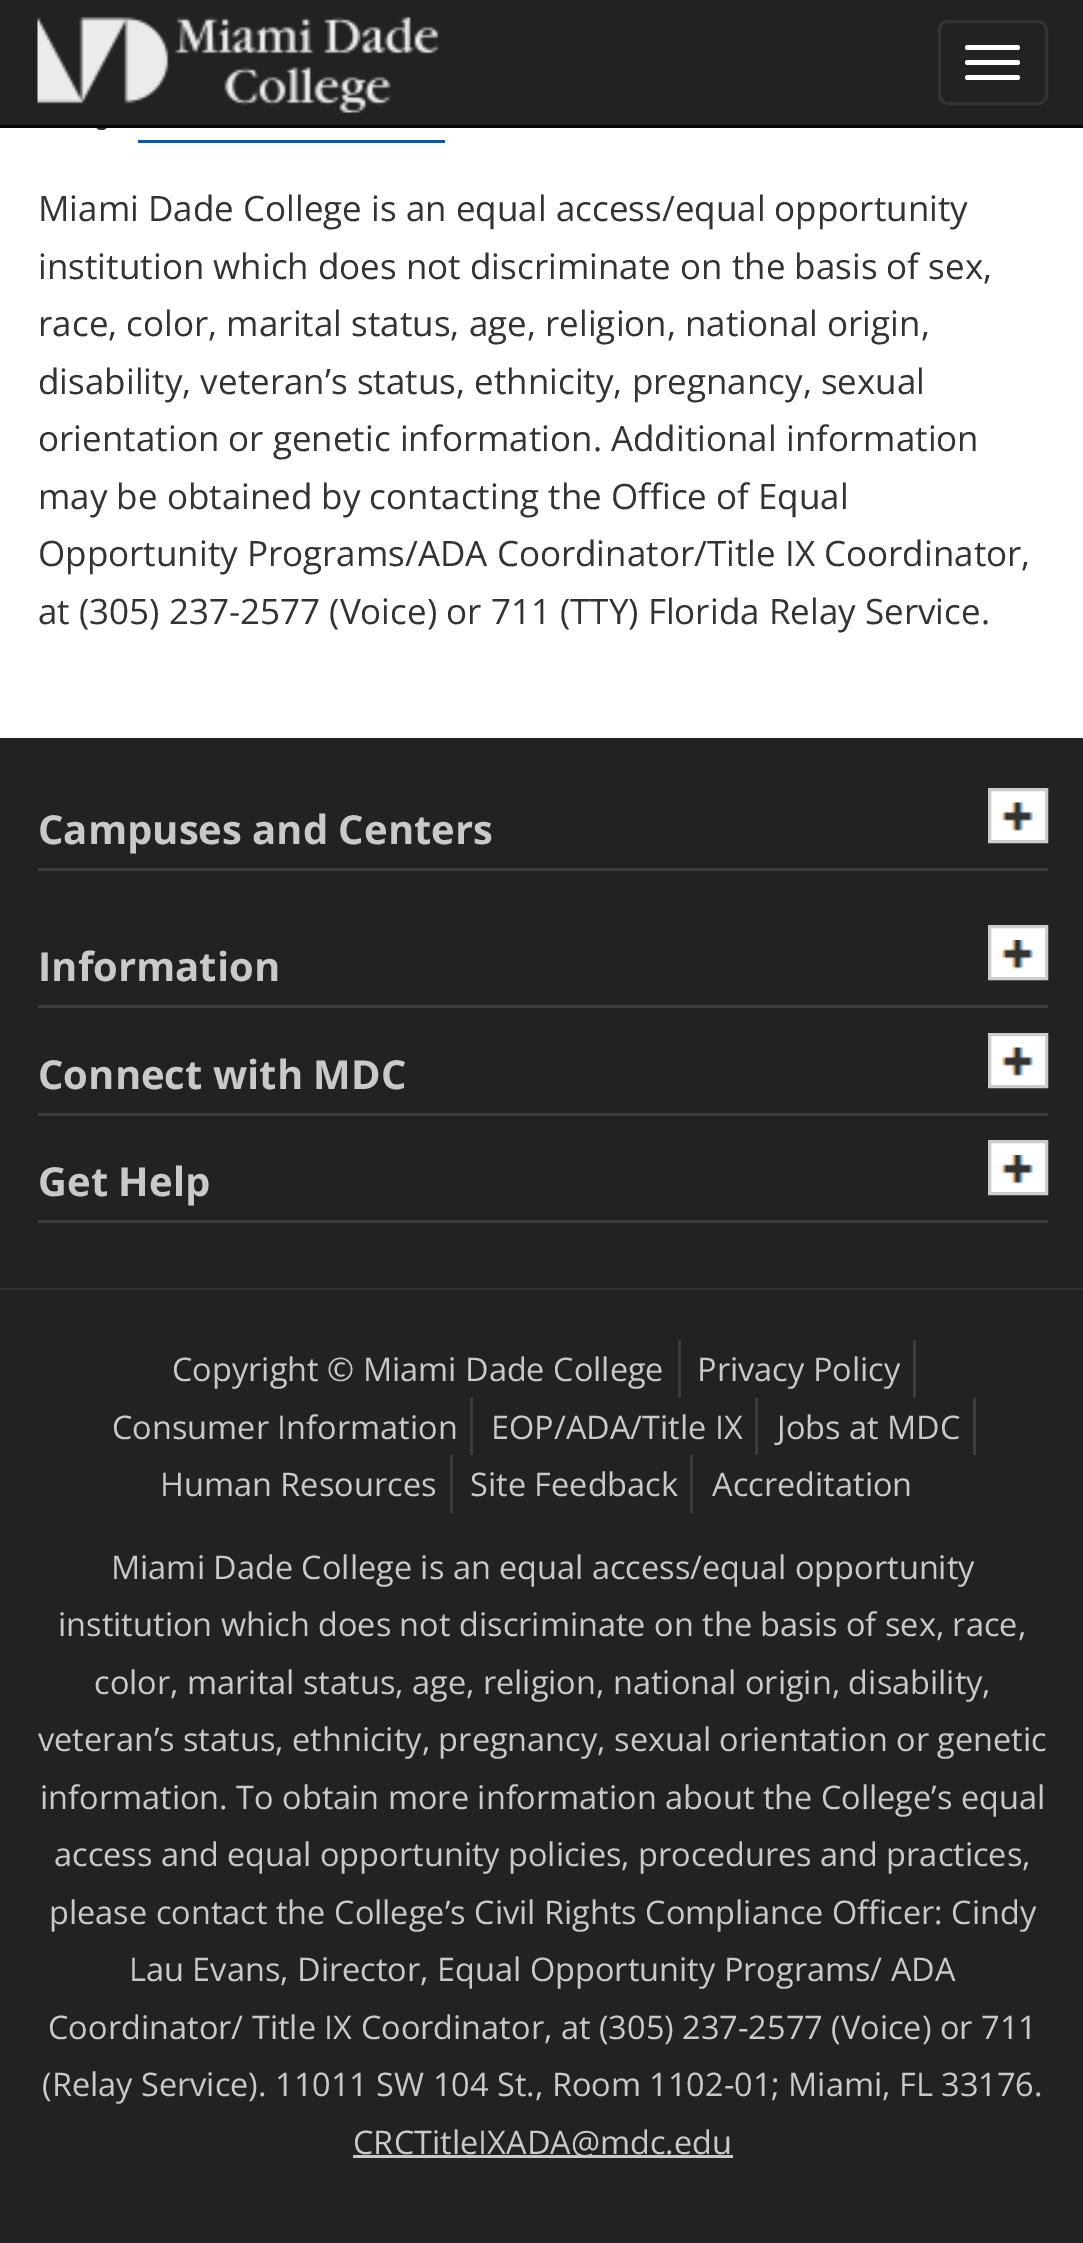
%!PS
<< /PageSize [1083 2243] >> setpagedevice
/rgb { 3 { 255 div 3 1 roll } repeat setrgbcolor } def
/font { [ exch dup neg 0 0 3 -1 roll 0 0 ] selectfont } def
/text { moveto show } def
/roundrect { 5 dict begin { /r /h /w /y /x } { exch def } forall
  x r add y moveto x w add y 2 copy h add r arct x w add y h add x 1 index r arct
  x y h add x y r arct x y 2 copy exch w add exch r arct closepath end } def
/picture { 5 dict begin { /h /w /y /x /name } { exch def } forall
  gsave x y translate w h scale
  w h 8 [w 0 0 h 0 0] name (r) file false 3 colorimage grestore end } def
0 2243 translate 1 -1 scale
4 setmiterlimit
255 255 255 rgb
0 0 1083 2243 rectfill
51 51 51 rgb
95 118 13 12 6 roundrect fill
34 34 34 rgb
0 0 1083 125 rectfill
8 8 8 rgb
0 125 1083 3 rectfill
(img_01.rgb) 37 16 402 97 picture
51 51 51 rgb
3 setlinewidth
939.5 21.5 107 82 8.5 roundrect stroke
255 255 255 rgb
965 45 55 5 2.5 roundrect fill
965 60 55 5 2.5 roundrect fill
965 75 55 5 2.5 roundrect fill
0 93 171 rgb
138 140 307 3 rectfill
34 34 34 rgb
0 738 1083 550 rectfill
51 51 51 rgb
0 1288 1083 2 rectfill
60 60 60 rgb
38 868 1010 3 rectfill
255 255 255 rgb
989.5 789.5 moveto 57 0 rlineto 0 52 rlineto -57 0 rlineto closepath gsave fill grestore
204 204 204 rgb
stroke
(img_02.rgb) 1002 802 31 29 picture
60 60 60 rgb
38 1005 1010 3 rectfill
255 255 255 rgb
989.5 926.5 moveto 57 0 rlineto 0 52 rlineto -57 0 rlineto closepath gsave fill grestore
204 204 204 rgb
stroke
(img_03.rgb) 1002 940 31 29 picture
60 60 60 rgb
38 1113 1010 3 rectfill
255 255 255 rgb
989.5 1034.5 moveto 57 0 rlineto 0 52 rlineto -57 0 rlineto closepath gsave fill grestore
204 204 204 rgb
stroke
(img_02.rgb) 1002 1047 31 29 picture
60 60 60 rgb
38 1220 1010 3 rectfill
255 255 255 rgb
989.5 1141.5 moveto 57 0 rlineto 0 52 rlineto -57 0 rlineto closepath gsave fill grestore
204 204 204 rgb
stroke
(img_03.rgb) 1002 1155 31 29 picture
34 34 34 rgb
0 1290 1083 953 rectfill
60 60 60 rgb
678 1340 3 58 rectfill
913 1340 3 58 rectfill
470 1398 3 57 rectfill
755 1398 3 57 rectfill
973 1398 3 57 rectfill
450 1455 3 58 rectfill
690 1455 3 58 rectfill
201 201 201 rgb
353 2155 380 3 rectfill
/OpenSans-Regular 35 font
51 51 51 rgb
(Miami Dade College is an equal access/equal opportunity) 38 221 text
(institution which does not discriminate on the basis of sex,) 38 279 text
(race, color, marital status, age, religion, national origin,) 38 336 text
(disability, veteran’s status, ethnicity, pregnancy, sexual) 38 394 text
(orientation or genetic information. Additional information) 38 451 text
(may be obtained by contacting the Office of Equal) 38 509 text
(Opportunity Programs/ADA Coordinator/Title IX Coordinator,) 38 566 text
(at \(305\) 237-2577 \(Voice\) or 711 \(TTY\) Florida Relay Service.) 38 624 text
/OpenSans-Bold 40 font
201 201 201 rgb
(Campuses and Centers) 38 844 text
(Information) 38 981 text
(Connect with MDC) 38 1089 text
(Get Help) 38 1196 text
/OpenSans-Regular 32.5 font
(Copyright © Miami Dade College) 172 1381 text
(Privacy Policy) 697 1381 text
(Consumer Information) 112 1439 text
(EOP/ADA/Title IX) 491 1439 text
(Jobs at MDC) 777 1439 text
(Human Resources) 160 1496 text
(Site Feedback) 470 1496 text
(Accreditation) 712 1496 text
(Miami Dade College is an equal access/equal opportunity) 111 1579 text
(institution which does not discriminate on the basis of sex, race,) 58 1636 text
(color, marital status, age, religion, national origin, disability,) 94 1694 text
(veteran’s status, ethnicity, pregnancy, sexual orientation or genetic) 38 1751 text
(information. To obtain more information about the College’s equal) 40 1809 text
(access and equal opportunity policies, procedures and practices,) 54 1866 text
(please contact the College’s Civil Rights Compliance Officer: Cindy) 49 1924 text
(Lau Evans, Director, Equal Opportunity Programs/ ADA) 129 1981 text
(Coordinator/ Title IX Coordinator, at \(305\) 237-2577 \(Voice\) or 711) 48 2039 text
(\(Relay Service\). 11011 SW 104 St., Room 1102-01; Miami, FL 33176.) 42 2096 text
(CRCTitleIXADA@mdc.edu) 353 2154 text
showpage
